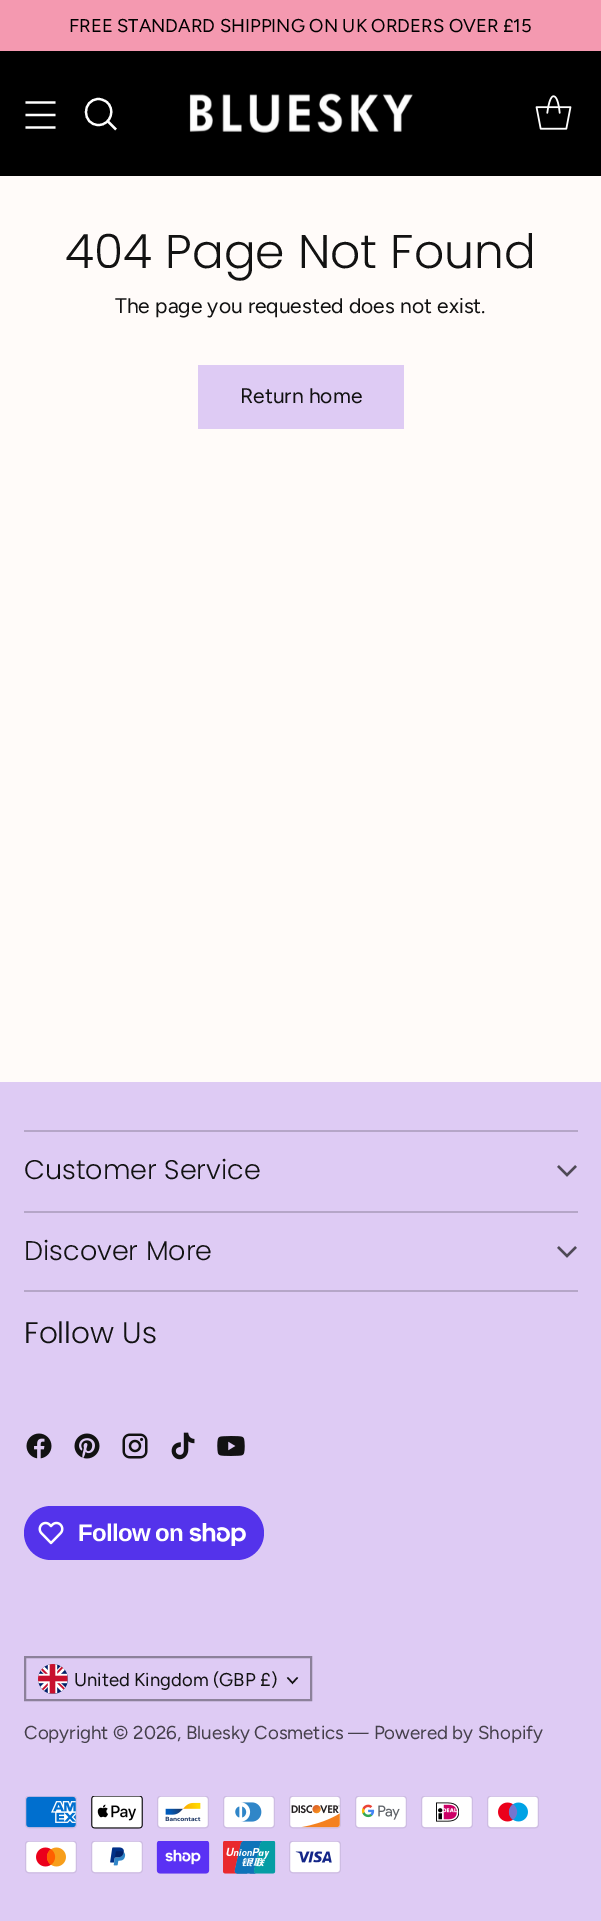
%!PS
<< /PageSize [601 1921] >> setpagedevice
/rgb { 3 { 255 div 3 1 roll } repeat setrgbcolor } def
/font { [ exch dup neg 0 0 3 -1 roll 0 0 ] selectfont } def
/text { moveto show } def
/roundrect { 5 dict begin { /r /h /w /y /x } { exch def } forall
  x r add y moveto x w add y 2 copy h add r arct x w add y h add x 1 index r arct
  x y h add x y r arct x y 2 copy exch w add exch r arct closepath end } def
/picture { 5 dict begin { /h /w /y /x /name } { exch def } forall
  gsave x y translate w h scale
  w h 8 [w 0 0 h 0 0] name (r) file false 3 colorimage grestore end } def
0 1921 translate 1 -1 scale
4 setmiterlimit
255 251 249 rgb
0 0 601 1921 rectfill
244 153 176 rgb
0 0 601 51 rectfill
0 0 0 rgb
0 51 601 125 rectfill
255 255 255 rgb
2.2 setlinewidth
25.5 115 moveto 30 0 rlineto 25.5 102.5 moveto 30 0 rlineto 25.5 127.5 moveto 30 0 rlineto stroke
1 setlinecap
98.5 125 moveto 12.5 0 17.5 -16.5 7.5 -23.5 rcurveto -2.5 -1.5 -5 -2.5 -7.5 -2.5 rcurveto -17 0.5 -16.5 26 0 26 rcurveto closepath stroke
0 setlinecap
108 121.5 moveto 8 8 rlineto stroke
(img_01.rgb) 189 93 224 40 picture
(img_02.rgb) 535 95 37 35 picture
222 203 244 rgb
198 365 206 64 rectfill
0 1082 601 839 rectfill
181 166 199 rgb
24 1130 554 2 rectfill
24 1211 554 2 rectfill
79 74 86 rgb
2.4 setlinewidth
558 1166 moveto 9 9 rlineto 9 -9 rlineto stroke
181 166 199 rgb
24 1290 554 2 rectfill
79 74 86 rgb
558 1247 moveto 9 9 rlineto 9 -9 rlineto stroke
(img_03.rgb) 26 1433 26 26 picture
(img_04.rgb) 74 1433 26 26 picture
(img_05.rgb) 122 1433 26 26 picture
(img_06.rgb) 171 1432 24 28 picture
(img_07.rgb) 217 1436 28 20 picture
84 51 235 rgb
24 1506 240 54 27 roundrect fill
(img_08.rgb) 38 1521 26 24 picture
(img_09.rgb) 189 1523 57 23 picture
140 129 154 rgb
2 setlinewidth
25 1657 286 43 rectstroke
(img_10.rgb) 38 1664 30 30 picture
18 18 18 rgb
1.4 setlinewidth
287.5 1677.5 moveto 5 5.5 rlineto 5 -5.5 rlineto stroke
(img_11.rgb) 25 1796 52 33 picture
(img_12.rgb) 91 1796 52 33 picture
(img_13.rgb) 157 1796 52 33 picture
(img_14.rgb) 223 1796 52 33 picture
(img_15.rgb) 289 1796 52 33 picture
(img_16.rgb) 355 1796 52 33 picture
(img_17.rgb) 421 1796 52 33 picture
(img_18.rgb) 487 1796 52 33 picture
(img_19.rgb) 25 1841 52 33 picture
(img_20.rgb) 91 1841 52 33 picture
(img_21.rgb) 156 1841 54 33 picture
(img_22.rgb) 223 1841 53 33 picture
(img_23.rgb) 289 1841 52 33 picture
/Figtree-Regular 18.5 font
0 0 0 rgb
(FREE STANDARD SHIPPING ON UK ORDERS OVER £15) 69 32 text
/Poppins-Light 47.25 font
18 18 18 rgb
(404 Page Not Found) 65 268 text
/Figtree-Regular 21.1 font
(The page you requested does not exist.) 115 313 text
(Return home) 240 403 text
/Poppins-Light 27 font
(Customer Service) 24 1179 text
(Discover More) 24 1260 text
/Poppins-Light 29.5 font
(Follow Us) 24 1343 text
/LiberationSans-Bold 24 font
255 255 255 rgb
78 1541 moveto -0.75 0 (Follow on) ashow
/Figtree-Regular 18.5 font
18 18 18 rgb
(United Kingdom \(GBP £\)) 74 1686 text
/Figtree-Regular 18.75 font
69 64 75 rgb
(Copyright © 2026, Bluesky Cosmetics — Powered by Shopify) 24 1739 text
showpage
